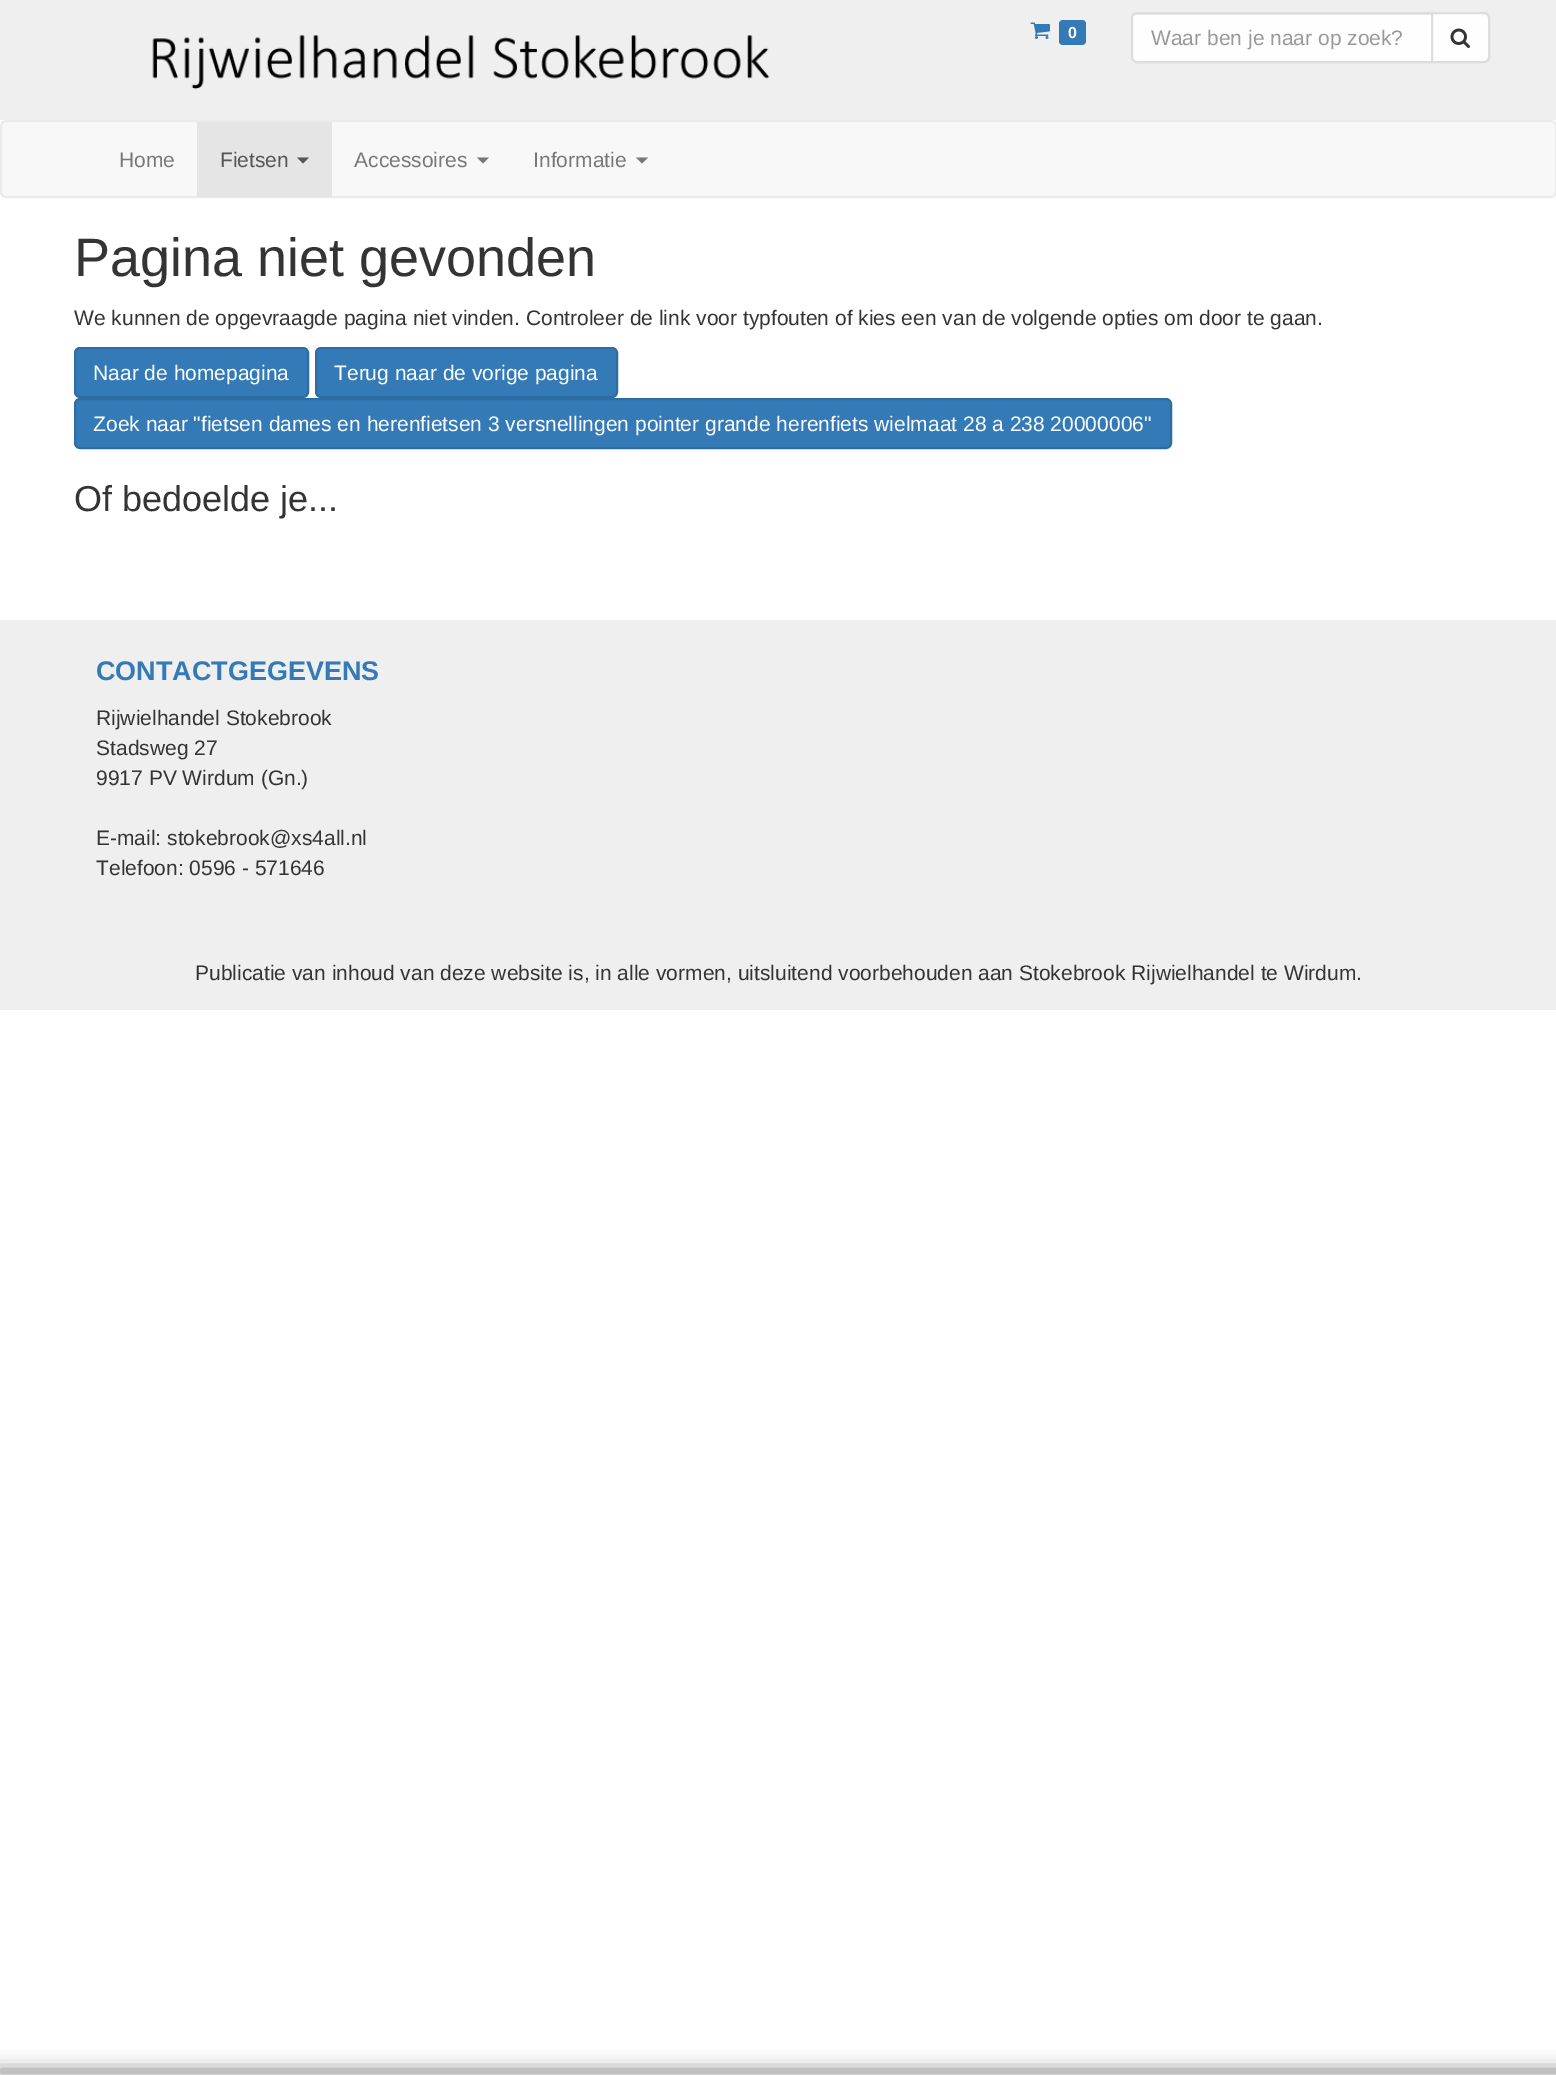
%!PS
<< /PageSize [1556 2075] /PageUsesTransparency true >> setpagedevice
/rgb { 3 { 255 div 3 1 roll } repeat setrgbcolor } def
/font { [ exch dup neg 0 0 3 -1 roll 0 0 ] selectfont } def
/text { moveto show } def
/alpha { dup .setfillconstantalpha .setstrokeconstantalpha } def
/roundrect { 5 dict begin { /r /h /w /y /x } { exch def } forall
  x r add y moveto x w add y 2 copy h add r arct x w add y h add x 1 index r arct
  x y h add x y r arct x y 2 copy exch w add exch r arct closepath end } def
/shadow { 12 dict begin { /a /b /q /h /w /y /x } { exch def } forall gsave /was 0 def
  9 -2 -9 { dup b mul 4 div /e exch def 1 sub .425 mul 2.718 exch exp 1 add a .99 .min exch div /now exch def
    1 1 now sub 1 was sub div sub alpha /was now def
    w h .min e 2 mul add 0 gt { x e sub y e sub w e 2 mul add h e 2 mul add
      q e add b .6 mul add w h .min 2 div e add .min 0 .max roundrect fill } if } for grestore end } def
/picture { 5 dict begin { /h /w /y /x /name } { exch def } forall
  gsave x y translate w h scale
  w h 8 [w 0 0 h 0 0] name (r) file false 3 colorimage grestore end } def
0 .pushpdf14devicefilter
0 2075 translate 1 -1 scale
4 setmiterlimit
255 255 255 rgb
0 0 1556 2075 rectfill
239 239 239 rgb
0 0 1556 120 rectfill
(img_01.rgb) 152 35 618 55 picture
(img_02.rgb) 1030 22 20 17 picture
51 122 183 rgb
1059 20 27 25 4 roundrect fill
254 254 254 rgb
1137 12 moveto 296 0 rlineto 0 51 rlineto -296 0 rlineto -3.5 0 -6 -2.5 -6 -6 rcurveto 0 -39 rlineto 0 -3.5 2.5 -6 6 -6 rcurveto closepath fill
235 235 235 rgb
1137 15 moveto 294 0 rlineto 0 -1 rlineto -293 0 rlineto -2 0 -3 1 -4 2 rcurveto closepath fill
221 221 221 rgb
2 setlinewidth
1137 13 moveto 295 0 rlineto 0 49 rlineto -295 0 rlineto -3 0 -5 -2 -5 -5 rcurveto 0 -39 rlineto 0 -3 2 -5 5 -5 rcurveto closepath stroke
254 254 254 rgb
1432 13 moveto 52 0 rlineto 3 0 5 2 5 5 rcurveto 0 39 rlineto 0 3 -2 5 -5 5 rcurveto -52 0 rlineto closepath gsave fill grestore
221 221 221 rgb
stroke
(img_03.rgb) 1450 28 20 20 picture
248 248 248 rgb
1 121 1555 76 5 roundrect gsave fill grestore
235 235 235 rgb
stroke
229 229 229 rgb
197 122 135 75 rectfill
86 86 86 rgb
297 157.5 moveto 12 0 rlineto -6 6 rlineto closepath fill
120 120 120 rgb
477 157.5 moveto 12 0 rlineto -6 6 rlineto closepath fill
636 157.5 moveto 12 0 rlineto -6 6 rlineto closepath fill
51 122 183 rgb
75 348 233 49 5 roundrect gsave fill grestore
46 109 164 rgb
stroke
51 122 183 rgb
316 348 301 49 5 roundrect gsave fill grestore
46 109 164 rgb
stroke
51 122 183 rgb
75 399 1096 49 5 roundrect gsave fill grestore
46 109 164 rgb
stroke
239 239 239 rgb
0 620 1556 390 rectfill
128 128 128 rgb
2 2070 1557 2 0 9 1 shadow
/LiberationSans-Bold 16 font
254 254 254 rgb
(0) 1068 38 text
/LiberationSans-Regular 21 font
153 153 153 rgb
(Waar ben je naar op zoek?) 1151 45 text
120 120 120 rgb
(Home) 119 167 text
86 86 86 rgb
(Fietsen) 220 167 text
120 120 120 rgb
(Accessoires) 354 167 text
(Informatie) 533 167 text
/LiberationSans-Regular 54 font
52 52 52 rgb
(Pagina niet gevonden) 74 276 text
/LiberationSans-Regular 21 font
(We kunnen de opgevraagde pagina niet vinden. Controleer de link voor typfouten of kies een van de volgende opties om door te gaan.) 74 325 text
254 254 254 rgb
(Naar de homepagina) 93 380 text
(Terug naar de vorige pagina) 334 380 text
(Zoek naar "fietsen dames en herenfietsen 3 versnellingen pointer grande herenfiets wielmaat 28 a 238 20000006") 93 431 text
/LiberationSans-Regular 36 font
52 52 52 rgb
(Of bedoelde je...) 74 511 text
/LiberationSans-Bold 27 font
51 122 183 rgb
(CONTACTGEGEVENS) 96 680 text
/LiberationSans-Regular 21 font
52 52 52 rgb
(Rijwielhandel Stokebrook) 96 725 text
(Stadsweg 27) 96 755 text
(9917 PV Wirdum \(Gn.\)) 96 785 text
(E-mail: stokebrook@xs4all.nl) 96 845 text
(Telefoon: 0596 - 571646) 96 875 text
(Publicatie van inhoud van deze website is, in alle vormen, uitsluitend voorbehouden aan Stokebrook Rijwielhandel te Wirdum.) 195 980 text
.poppdf14devicefilter showpage
